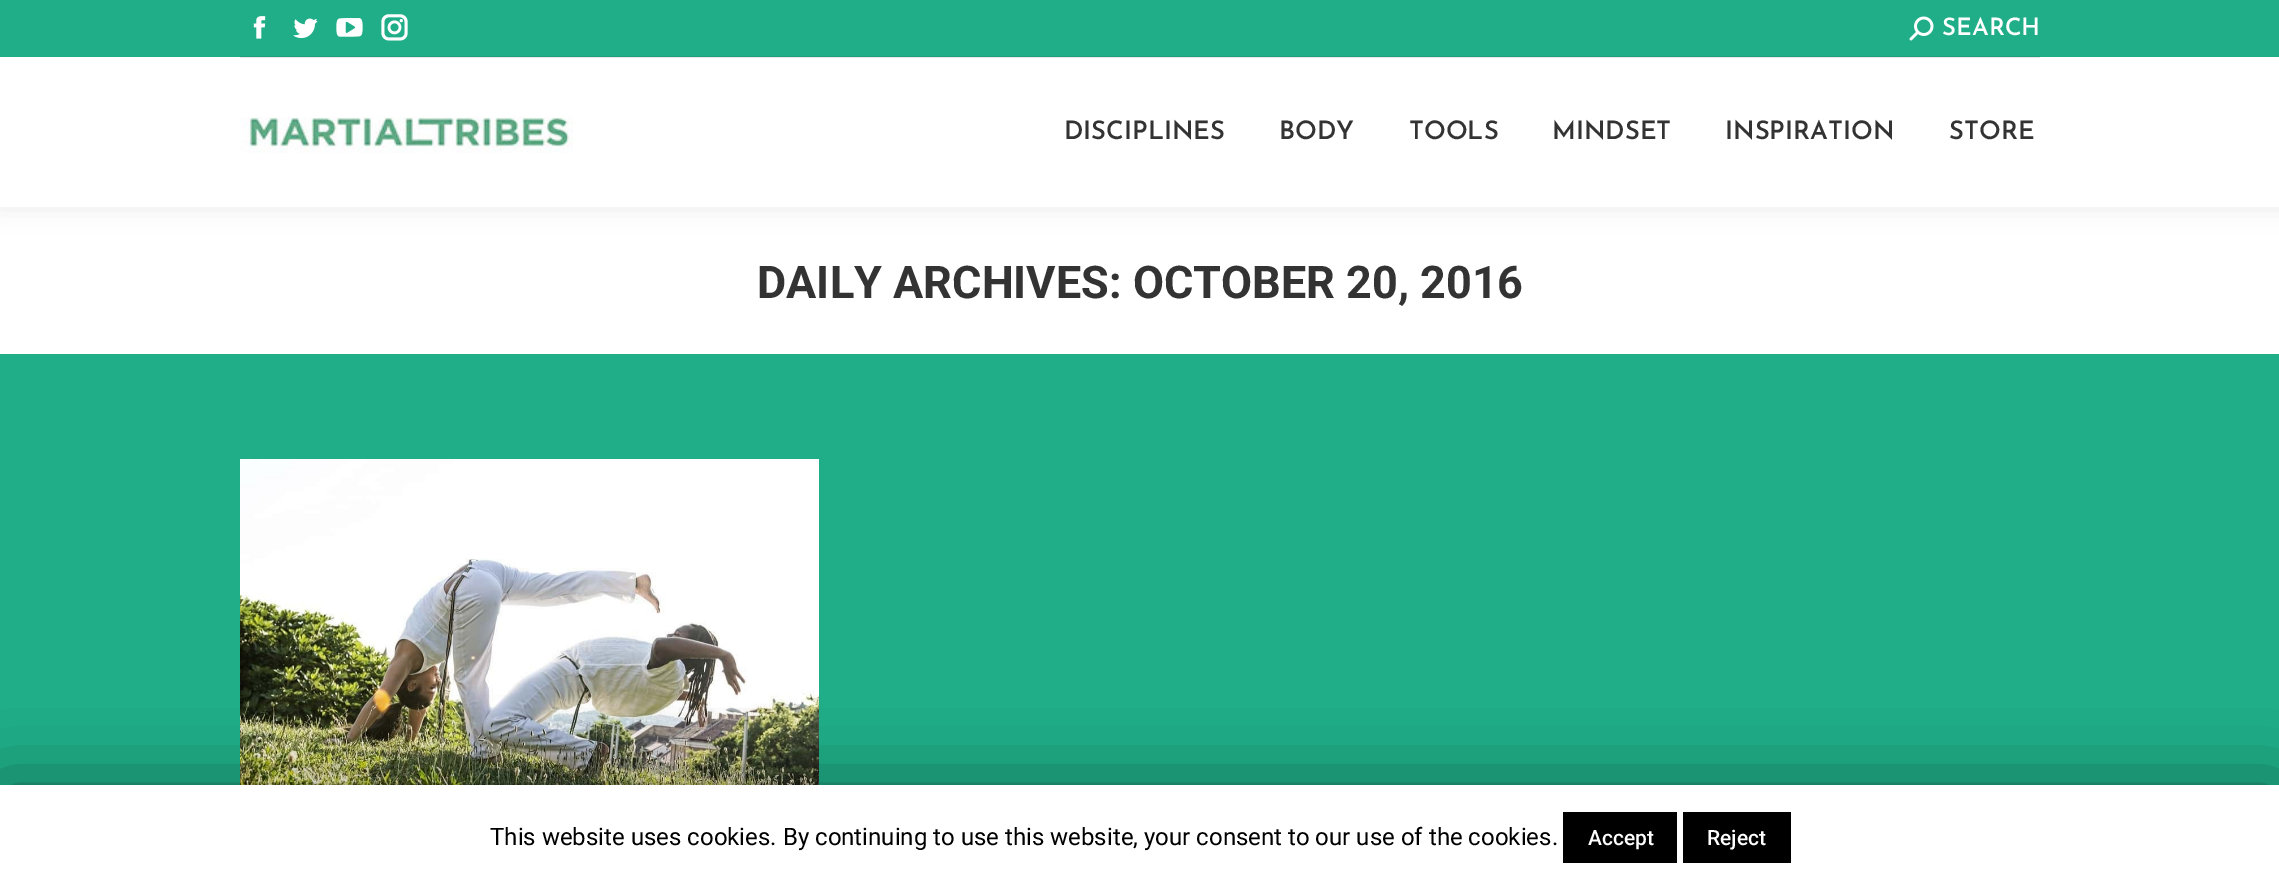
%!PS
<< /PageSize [2279 881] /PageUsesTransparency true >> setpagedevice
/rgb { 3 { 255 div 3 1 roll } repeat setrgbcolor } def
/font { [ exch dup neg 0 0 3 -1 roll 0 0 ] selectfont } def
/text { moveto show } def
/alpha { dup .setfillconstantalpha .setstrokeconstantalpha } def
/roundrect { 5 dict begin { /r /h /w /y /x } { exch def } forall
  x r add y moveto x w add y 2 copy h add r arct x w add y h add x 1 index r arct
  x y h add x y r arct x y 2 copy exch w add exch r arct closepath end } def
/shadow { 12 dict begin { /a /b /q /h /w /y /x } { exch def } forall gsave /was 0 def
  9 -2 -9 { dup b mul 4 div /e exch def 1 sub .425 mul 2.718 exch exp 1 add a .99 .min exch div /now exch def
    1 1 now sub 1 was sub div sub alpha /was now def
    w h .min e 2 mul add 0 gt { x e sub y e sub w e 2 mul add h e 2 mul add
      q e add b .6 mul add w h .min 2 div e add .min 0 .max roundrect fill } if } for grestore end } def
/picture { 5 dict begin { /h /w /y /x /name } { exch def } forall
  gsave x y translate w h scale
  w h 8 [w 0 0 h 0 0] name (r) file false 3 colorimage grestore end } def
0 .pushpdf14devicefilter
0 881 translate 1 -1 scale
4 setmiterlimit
32 174 136 rgb
0 0 2279 881 rectfill
255 255 255 rgb
0 207 2279 147 rectfill
0 0 0 rgb
-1 -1 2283 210 0 11 0.07 shadow
255 255 255 rgb
0 57 2279 150 rectfill
231 231 231 rgb
240 57 1800 1 rectfill
32 174 136 rgb
0 0 2279 57 rectfill
34 159 126 rgb
240 56 1800 1 rectfill
(img_01.rgb) 253 16 13 23 picture
(img_02.rgb) 293 18 25 21 picture
(img_03.rgb) 336 18 27 19 picture
(img_04.rgb) 381 14 27 27 picture
(img_05.rgb) 1909 16 25 25 picture
(img_06.rgb) 240 117 333 36 picture
(img_07.rgb) 240 459 579 326 picture
0 0 0 rgb
0 792 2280 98 0 37.5 0.5 shadow
255 255 255 rgb
0 785 2279 96 rectfill
0 0 0 rgb
1563 812 114 51 rectfill
1683 812 108 51 rectfill
/JosefinSans-SemiBold 24 font
255 255 255 rgb
(SEARCH) 1942 35 text
/JosefinSans-SemiBold 25.5 font
51 51 51 rgb
(DISCIPLINES) 1064 139 text
(BODY) 1279 139 text
(TOOLS) 1409 139 text
(MINDSET) 1552 139 text
(INSPIRATION) 1725 139 text
(STORE) 1949 139 text
/Roboto-Bold 45 font
(DAILY ARCHIVES: OCTOBER 20, 2016) 757 298 text
/Roboto-Regular 24 font
0 0 0 rgb
(This website uses cookies. By continuing to use this website, your consent to our use of the cookies.) 490 845 text
/Roboto-Medium 21 font
255 255 255 rgb
(Accept) 1588 845 text
(Reject) 1707 845 text
.poppdf14devicefilter showpage
